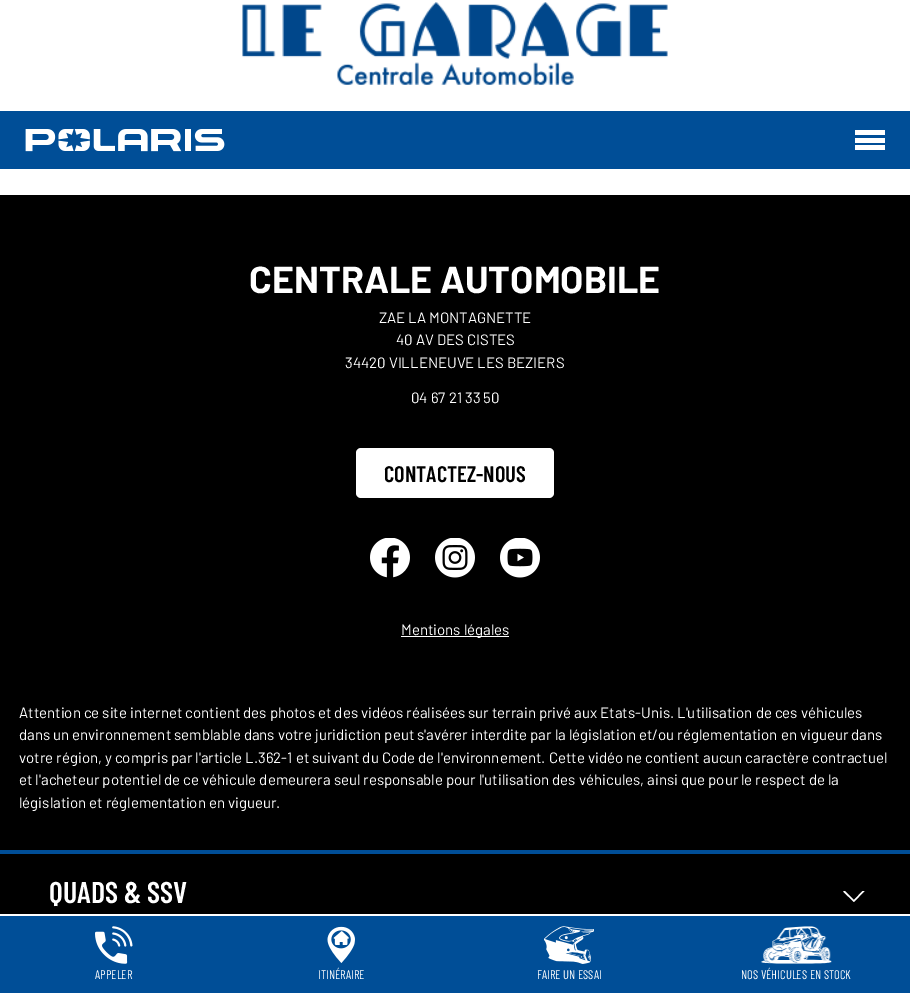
%!PS
<< /PageSize [910 993] >> setpagedevice
/rgb { 3 { 255 div 3 1 roll } repeat setrgbcolor } def
/font { [ exch dup neg 0 0 3 -1 roll 0 0 ] selectfont } def
/text { moveto show } def
/roundrect { 5 dict begin { /r /h /w /y /x } { exch def } forall
  x r add y moveto x w add y 2 copy h add r arct x w add y h add x 1 index r arct
  x y h add x y r arct x y 2 copy exch w add exch r arct closepath end } def
/picture { 5 dict begin { /h /w /y /x /name } { exch def } forall
  gsave x y translate w h scale
  w h 8 [w 0 0 h 0 0] name (r) file false 3 colorimage grestore end } def
0 993 translate 1 -1 scale
4 setmiterlimit
255 255 255 rgb
0 0 910 993 rectfill
(img_01.rgb) 242 2 426 83 picture
0 78 151 rgb
0 111 910 58 rectfill
(img_02.rgb) 25 129 200 23 picture
255 255 255 rgb
855 130 30 5 rectfill
855 138 30 5 rectfill
855 145 30 5 rectfill
0 0 0 rgb
0 195 910 655 rectfill
255 255 255 rgb
356 448 198 50 5 roundrect fill
(img_03.rgb) 370 538 40 40 picture
(img_04.rgb) 435 538 40 40 picture
(img_05.rgb) 500 538 40 40 picture
401 636 108 1 rectfill
0 0 0 rgb
0 854 910 60 rectfill
0 78 151 rgb
0 850 910 4 rectfill
255 255 255 rgb
864.5 891 moveto -10.5 11 rlineto 0 -2 rlineto 8.5 -9 rlineto closepath 854 902 moveto -11 -10.5 rlineto 2 -0.5 rlineto 9 9 rlineto closepath fill
0 78 151 rgb
0 916 910 77 rectfill
(img_06.rgb) 95 926 38 38 picture
(img_07.rgb) 327 926 28 37 picture
(img_08.rgb) 544 926 50 38 picture
(img_09.rgb) 761 926 71 38 picture
/Barlow-Bold 37.5 font
255 255 255 rgb
(CENTRALE AUTOMOBILE) 249 293 text
/Barlow-Regular 15 font
(ZAE LA MONTAGNETTE) 379 323 text
(40 AV DES CISTES) 396 345 text
(34420 VILLENEUVE LES BEZIERS) 345 368 text
(04 67 21 33 50) 411 403 text
/BarlowCondensed-SemiBold 22.5 font
0 0 0 rgb
(CONTACTEZ-NOUS) 384 482 text
/Barlow-Regular 15 font
255 255 255 rgb
(Mentions légales) 401 635 text
(Attention ce site internet contient des photos et des vidéos réalisées sur terrain privé aux Etats-Unis. L'utilisation de ces véhicules) 19 718 text
(dans un environnement semblable dans votre juridiction peut s'avérer interdite par la législation et/ou réglementation en vigueur dans) 19 740 text
(votre région, y compris par l'article L.362-1 et suivant du Code de l'environnement. Cette vidéo ne contient aucun caractère contractuel) 19 763 text
(et l'acheteur potentiel de ce véhicule demeurera seul responsable pour l'utilisation des véhicules, ainsi que pour le respect de la) 19 785 text
(législation et réglementation en vigueur.) 19 808 text
/BarlowCondensed-SemiBold 30 font
(QUADS & SSV) 49 903 text
/BarlowCondensed-Regular 12.5 font
(APPELER) 95 979 text
(ITINÉRAIRE) 318 979 text
(FAIRE UN ESSAI) 537 979 text
(NOS VÉHICULES EN STOCK) 741 979 text
showpage
